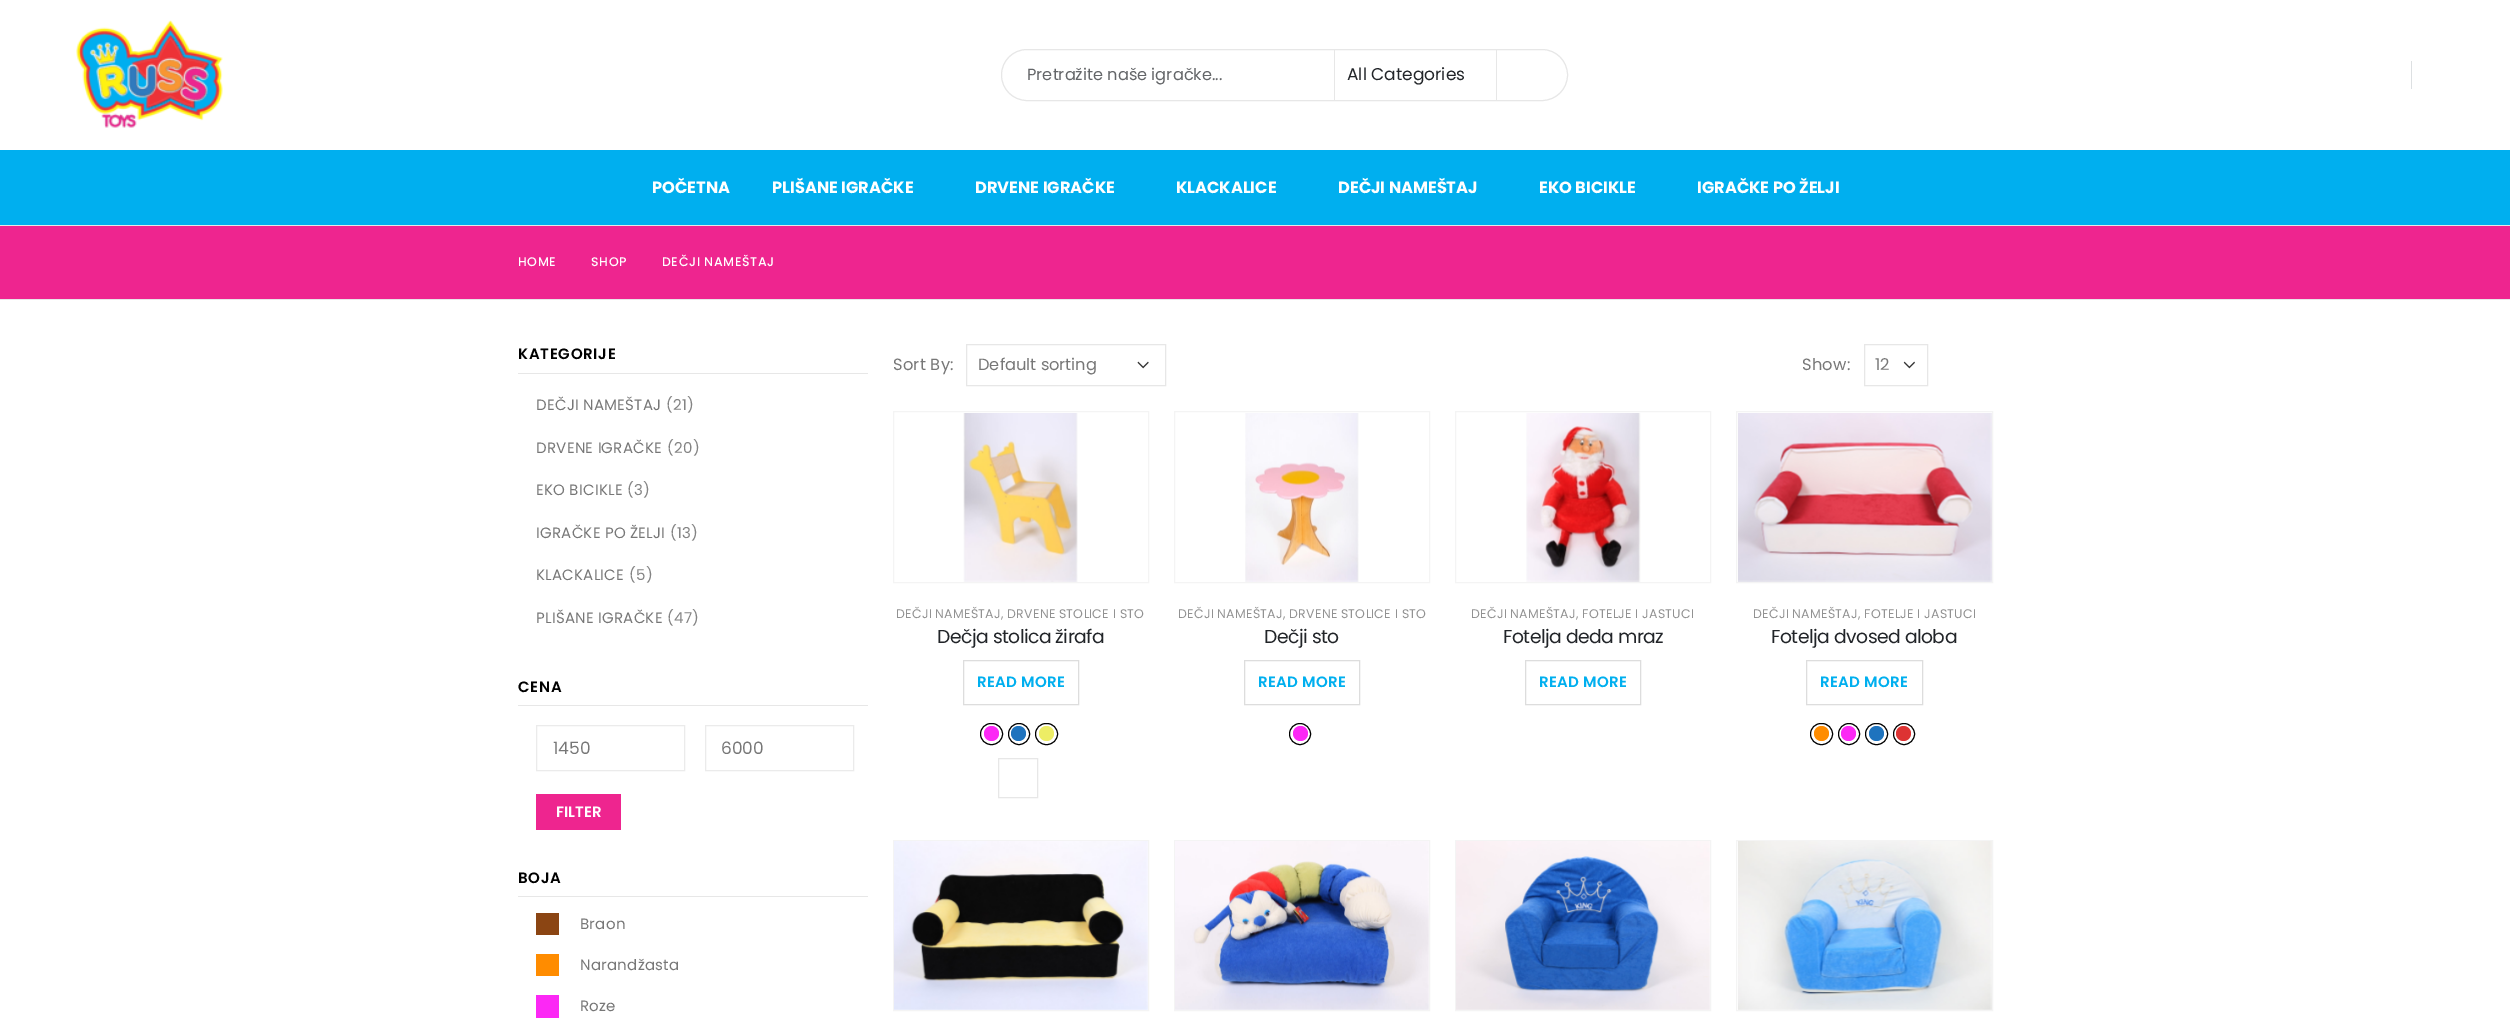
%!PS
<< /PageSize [2510 1026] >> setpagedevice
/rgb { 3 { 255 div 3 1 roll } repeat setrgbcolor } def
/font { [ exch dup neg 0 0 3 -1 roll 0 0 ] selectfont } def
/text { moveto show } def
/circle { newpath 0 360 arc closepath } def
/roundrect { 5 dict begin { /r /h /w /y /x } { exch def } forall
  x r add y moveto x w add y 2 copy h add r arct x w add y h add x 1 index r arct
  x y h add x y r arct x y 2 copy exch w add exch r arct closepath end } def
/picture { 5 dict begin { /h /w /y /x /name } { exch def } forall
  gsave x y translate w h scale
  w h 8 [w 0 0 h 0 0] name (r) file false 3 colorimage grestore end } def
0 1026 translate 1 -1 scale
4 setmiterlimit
255 255 255 rgb
0 0 2510 1026 rectfill
(img_01.rgb) 76 20 147 108 picture
231 231 231 rgb
1001.5 49.5 566 51 25.5 roundrect stroke
1334 50 1 50 rectfill
1496 50 1 50 rectfill
221 224 226 rgb
2411 61 1 28 rectfill
0 175 239 rgb
0 150 2510 75 rectfill
238 37 143 rgb
0 226 2510 73 rectfill
231 231 231 rgb
0 225 2510 1 rectfill
0 299 2510 1 rectfill
518 373 350 1 rectfill
518 705 350 1 rectfill
235 235 235 rgb
536.5 725.5 148 45 rectstroke
705.5 725.5 148 45 rectstroke
238 37 143 rgb
536 794 85 36 rectfill
231 231 231 rgb
518 896 350 1 rectfill
139 69 19 rgb
536 913 23 22 rectfill
255 140 0 rgb
536 954 23 22 rectfill
252 40 245 rgb
536 995 23 23 rectfill
(img_02.rgb) 1137 361 12 8 picture
231 231 231 rgb
966.5 344.5 199 41 rectstroke
(img_03.rgb) 1903 361 12 8 picture
1864.5 344.5 63 41 rectstroke
244 244 244 rgb
893.5 411.5 255 171 rectstroke
(img_04.rgb) 963 413 115 169 picture
221 221 221 rgb
963.5 660.5 115 44 rectstroke
252 40 245 rgb
991.5 733.5 7.5 circle fill
0 0 0 rgb
980.5 723.5 22 21 10.5 roundrect stroke
30 115 190 rgb
1018.5 733.5 7.5 circle fill
0 0 0 rgb
1019 734 10.5 circle stroke
237 237 101 rgb
1046.5 733.5 7.5 circle fill
0 0 0 rgb
1035.5 723.5 22 21 10.5 roundrect stroke
231 231 231 rgb
998.5 758.5 39 39 rectstroke
244 244 244 rgb
1174.5 411.5 255 171 rectstroke
(img_05.rgb) 1245 413 114 169 picture
221 221 221 rgb
1244.5 660.5 115 44 rectstroke
252 40 245 rgb
1300.5 733.5 7.5 circle fill
0 0 0 rgb
1300 734 10.5 circle stroke
244 244 244 rgb
1455.5 411.5 255 171 rectstroke
(img_06.rgb) 1526 413 115 169 picture
221 221 221 rgb
1525.5 660.5 115 44 rectstroke
244 244 244 rgb
1736.5 411.5 256 171 rectstroke
(img_07.rgb) 1738 413 254 169 picture
221 221 221 rgb
1806.5 660.5 116 44 rectstroke
255 140 0 rgb
1821.5 733.5 7.5 circle fill
0 0 0 rgb
1810.5 723.5 22 21 10.5 roundrect stroke
252 40 245 rgb
1848.5 733.5 7.5 circle fill
0 0 0 rgb
1849 734 10.5 circle stroke
30 115 190 rgb
1876.5 733.5 7.5 circle fill
0 0 0 rgb
1865.5 723.5 22 21 10.5 roundrect stroke
221 51 51 rgb
1903.5 733.5 7.5 circle fill
0 0 0 rgb
1904 734 10.5 circle stroke
244 244 244 rgb
893.5 840.5 255 170 rectstroke
(img_08.rgb) 894 841 254 169 picture
1174.5 840.5 255 170 rectstroke
(img_09.rgb) 1175 841 254 169 picture
1455.5 840.5 255 170 rectstroke
(img_10.rgb) 1456 841 254 169 picture
1736.5 840.5 256 170 rectstroke
(img_11.rgb) 1738 841 254 169 picture
/Poppins-Regular 16.25 font
100 102 105 rgb
(Pretražite naše igračke...) 1027 80 text
/Poppins-Regular 17 font
34 37 41 rgb
(All Categories) 1347 80 text
/Poppins-Bold 16.25 font
255 255 255 rgb
(POČETNA) 652 193 text
(PLIŠANE IGRAČKE) 772 193 text
(DRVENE IGRAČKE) 975 193 text
(KLACKALICE) 1176 193 text
(DEČJI NAMEŠTAJ) 1338 193 text
(EKO BICIKLE) 1539 193 text
(IGRAČKE PO ŽELJI) 1697 193 text
/Poppins-Medium 12.5 font
518 266 moveto 0.6 0 (HOME) ashow
591 266 moveto 0.6 0 (SHOP) ashow
662 266 moveto 0.6 0 (DEČJI NAMEŠTAJ) ashow
/Poppins-SemiBold 15 font
0 0 0 rgb
518 359 moveto 0.75 0 (KATEGORIJE) ashow
/Poppins-Regular 15 font
119 119 119 rgb
536 410 moveto 0.25 0 (DEČJI NAMEŠTAJ) ashow
132 132 132 rgb
666 410 moveto 0.25 0 (\(21\)) ashow
119 119 119 rgb
536 453 moveto 0.25 0 (DRVENE IGRAČKE) ashow
132 132 132 rgb
667 453 moveto 0.25 0 (\(20\)) ashow
119 119 119 rgb
536 495 moveto 0.25 0 (EKO BICIKLE) ashow
132 132 132 rgb
627 495 moveto 0.25 0 (\(3\)) ashow
119 119 119 rgb
536 538 moveto 0.25 0 (IGRAČKE PO ŽELJI) ashow
132 132 132 rgb
670 538 moveto 0.25 0 (\(13\)) ashow
119 119 119 rgb
536 580 moveto 0.25 0 (KLACKALICE) ashow
132 132 132 rgb
629 580 moveto 0.25 0 (\(5\)) ashow
119 119 119 rgb
536 623 moveto 0.25 0 (PLIŠANE IGRAČKE) ashow
132 132 132 rgb
667 623 moveto 0.25 0 (\(47\)) ashow
/Poppins-SemiBold 15 font
0 0 0 rgb
518 692 moveto 0.75 0 (CENA) ashow
/Poppins-Regular 17 font
119 119 119 rgb
(1450) 553 754 text
(6000) 721 754 text
/Poppins-SemiBold 15 font
255 255 255 rgb
(FILTER) 556 817 text
0 0 0 rgb
518 883 moveto 0.75 0 (BOJA) ashow
/Poppins-Regular 15 font
119 119 119 rgb
580 929 moveto 0.25 0 (Braon) ashow
580 970 moveto 0.25 0 (Narandžasta) ashow
580 1011 moveto 0.25 0 (Roze) ashow
/Poppins-Regular 16.25 font
893 370 moveto 0.25 0 (Sort By:) ashow
(Default sorting) 978 370 text
1802 370 moveto 0.25 0 (Show:) ashow
(12) 1875 370 text
/Poppins-Regular 12.5 font
146 146 146 rgb
896 618 moveto 0.25 0 (DEČJI NAMEŠTAJ, DRVENE STOLICE I STO) ashow
/Poppins-Regular 18.75 font
34 37 41 rgb
937 643 moveto -0.5 0 (Dečja stolica žirafa) ashow
/Poppins-SemiBold 15 font
0 175 239 rgb
977 687 moveto 0.25 0 (READ MORE) ashow
/Poppins-Regular 12.5 font
146 146 146 rgb
1178 618 moveto 0.25 0 (DEČJI NAMEŠTAJ, DRVENE STOLICE I STO) ashow
/Poppins-Regular 18.75 font
34 37 41 rgb
1264 643 moveto -0.5 0 (Dečji sto) ashow
/Poppins-SemiBold 15 font
0 175 239 rgb
1258 687 moveto 0.25 0 (READ MORE) ashow
/Poppins-Regular 12.5 font
146 146 146 rgb
1471 618 moveto 0.25 0 (DEČJI NAMEŠTAJ, FOTELJE I JASTUCI) ashow
/Poppins-Regular 18.75 font
34 37 41 rgb
1503 643 moveto -0.5 0 (Fotelja deda mraz) ashow
/Poppins-SemiBold 15 font
0 175 239 rgb
1539 687 moveto 0.25 0 (READ MORE) ashow
/Poppins-Regular 12.5 font
146 146 146 rgb
1753 618 moveto 0.25 0 (DEČJI NAMEŠTAJ, FOTELJE I JASTUCI) ashow
/Poppins-Regular 18.75 font
34 37 41 rgb
1771 643 moveto -0.5 0 (Fotelja dvosed aloba) ashow
/Poppins-SemiBold 15 font
0 175 239 rgb
1820 687 moveto 0.25 0 (READ MORE) ashow
showpage
